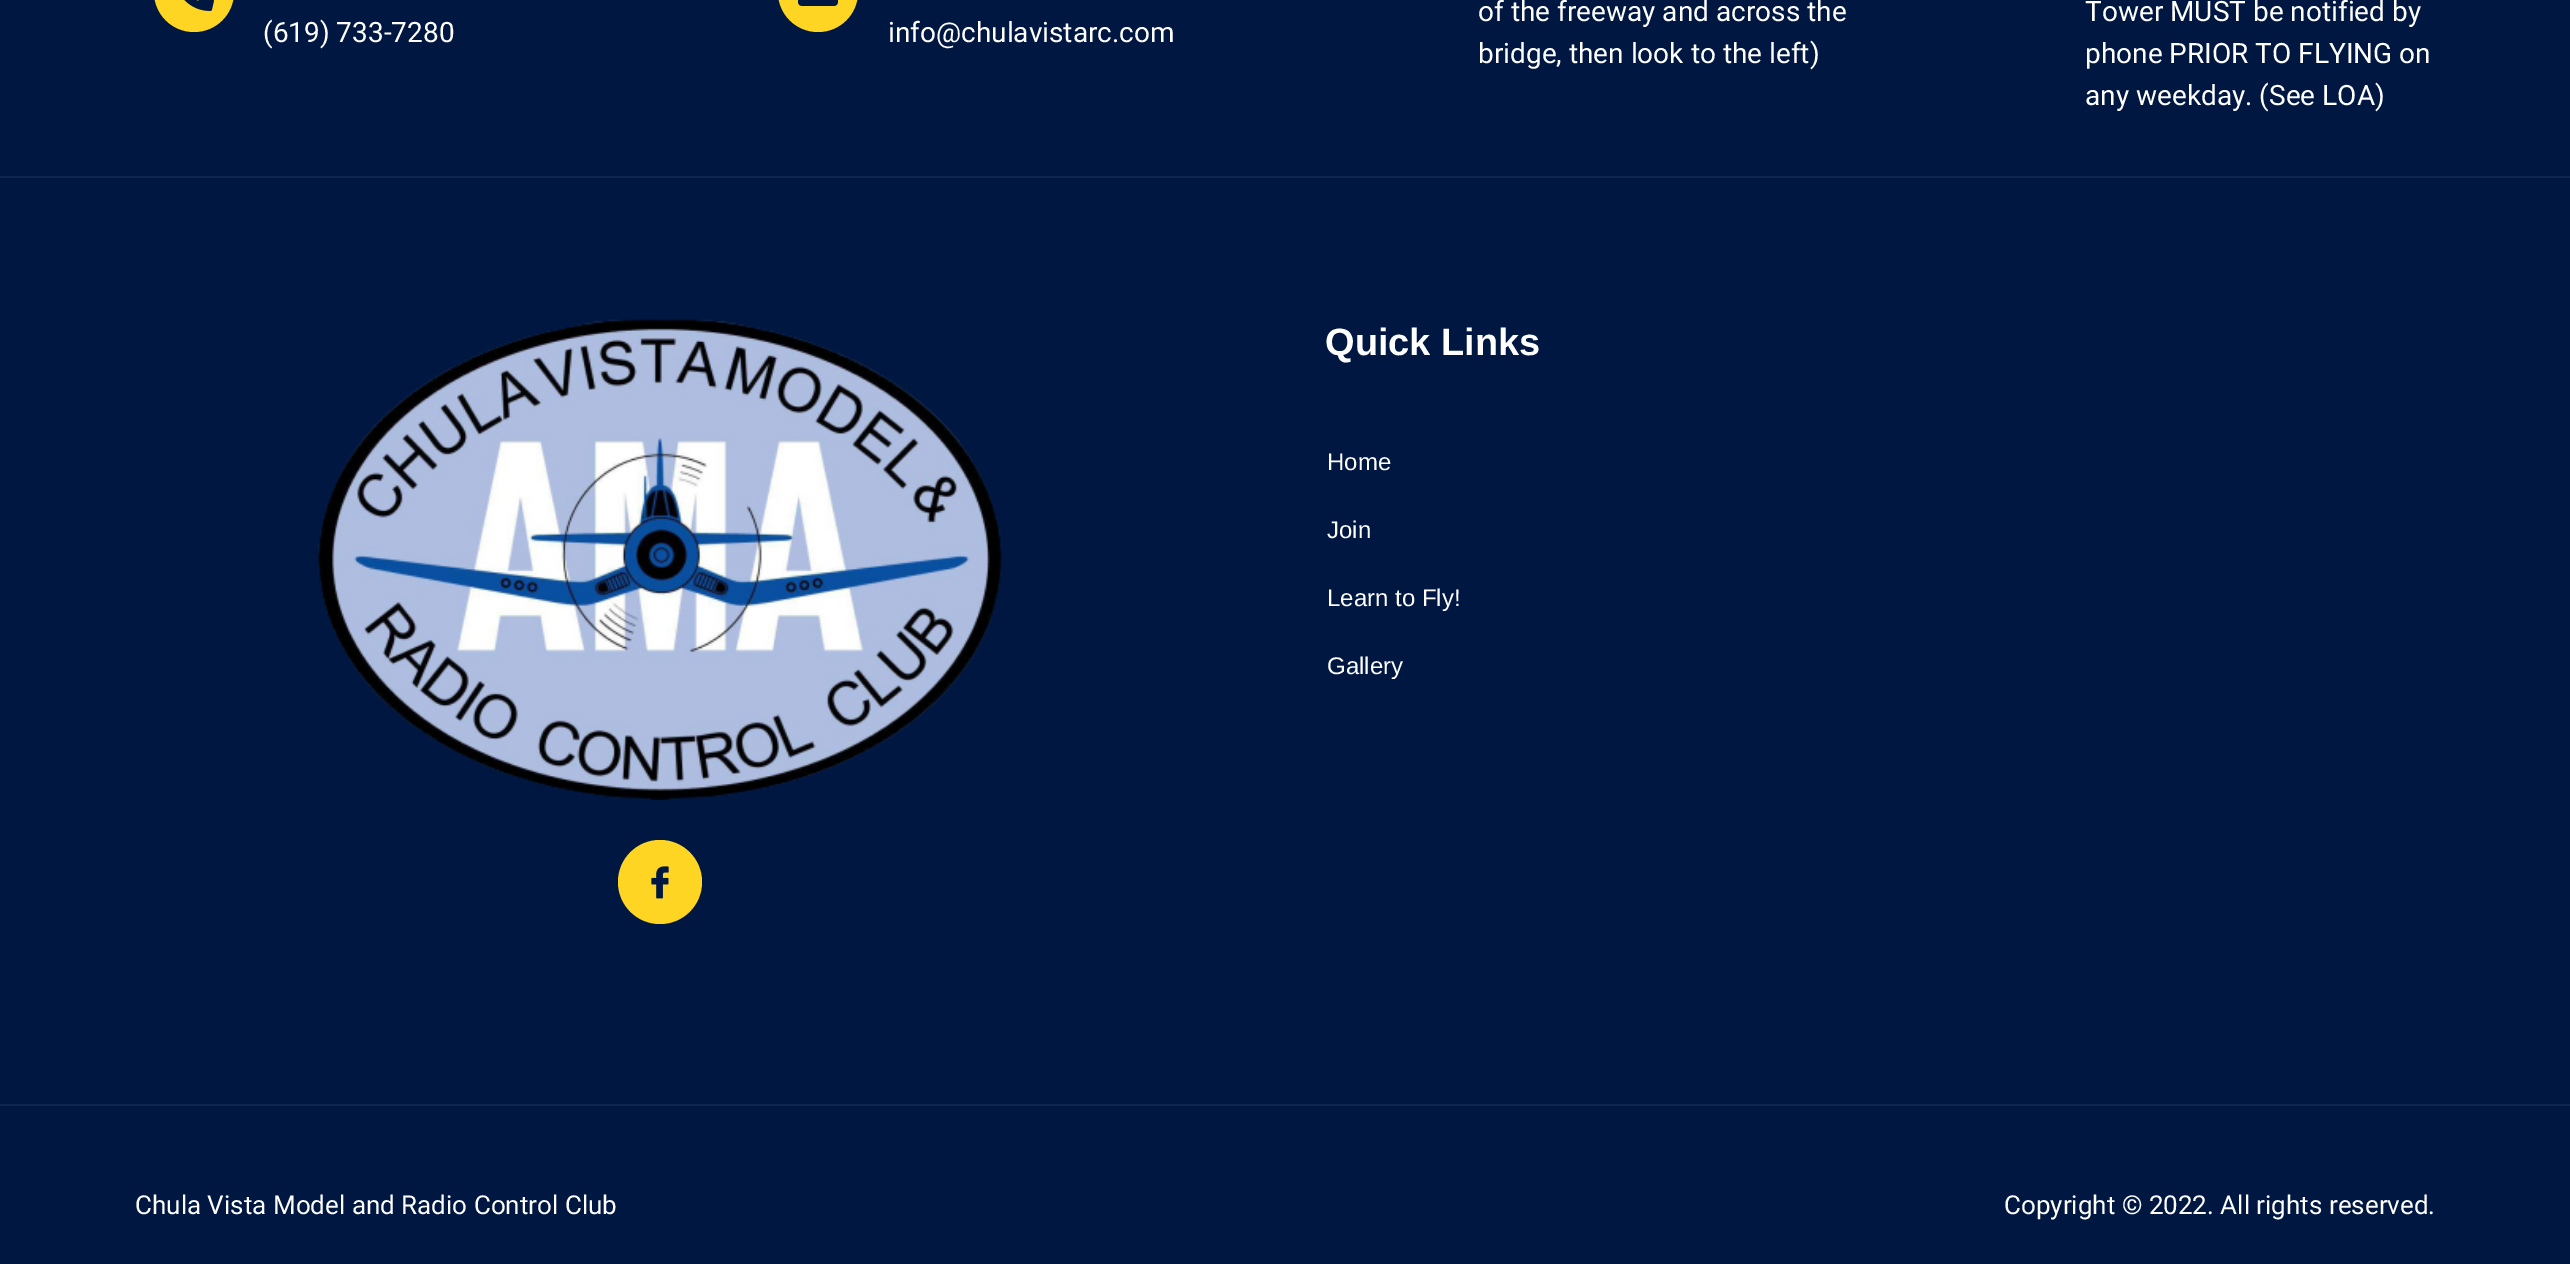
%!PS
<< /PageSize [2570 1264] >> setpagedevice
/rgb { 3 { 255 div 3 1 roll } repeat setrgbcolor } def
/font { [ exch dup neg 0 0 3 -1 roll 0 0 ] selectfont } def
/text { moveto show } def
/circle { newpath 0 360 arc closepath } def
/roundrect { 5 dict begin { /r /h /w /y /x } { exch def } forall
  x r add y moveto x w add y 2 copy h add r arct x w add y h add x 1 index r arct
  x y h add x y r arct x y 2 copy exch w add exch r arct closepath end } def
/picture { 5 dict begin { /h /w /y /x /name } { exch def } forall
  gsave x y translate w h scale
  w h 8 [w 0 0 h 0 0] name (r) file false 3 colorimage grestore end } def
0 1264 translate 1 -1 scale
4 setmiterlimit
0 23 66 rgb
0 0 2570 1264 rectfill
16 38 78 rgb
0 176 2570 2 rectfill
255 213 35 rgb
154 -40 80 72 40 roundrect fill
(img_01.rgb) 184 0 30 11 picture
778 -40 80 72 40 roundrect fill
(img_02.rgb) 798 0 40 6 picture
(img_03.rgb) 318 319 684 481 picture
660 882 42 circle fill
(img_04.rgb) 651 866 18 33 picture
16 38 78 rgb
0 1104 2570 2 rectfill
/Roboto-Regular 28 font
255 255 255 rgb
(\(619\) 733-7280) 263 42 text
(info@chulavistarc.com) 888 42 text
(of the freeway and across the) 1478 21 text
(bridge, then look to the left\)) 1478 63 text
(Tower MUST be notified by) 2085 21 text
(phone PRIOR TO FLYING on) 2085 63 text
(any weekday. \(See LOA\)) 2085 105 text
/LiberationSans-Bold 38 font
(Quick Links) 1325 355 text
/LiberationSans-Regular 24 font
(Home) 1327 470 text
(Join) 1327 538 text
(Learn to Fly!) 1327 606 text
(Gallery) 1327 674 text
/Roboto-Regular 26 font
(Chula Vista Model and Radio Control Club) 135 1214 text
(Copyright © 2022. All rights reserved.) 2004 1214 text
showpage
